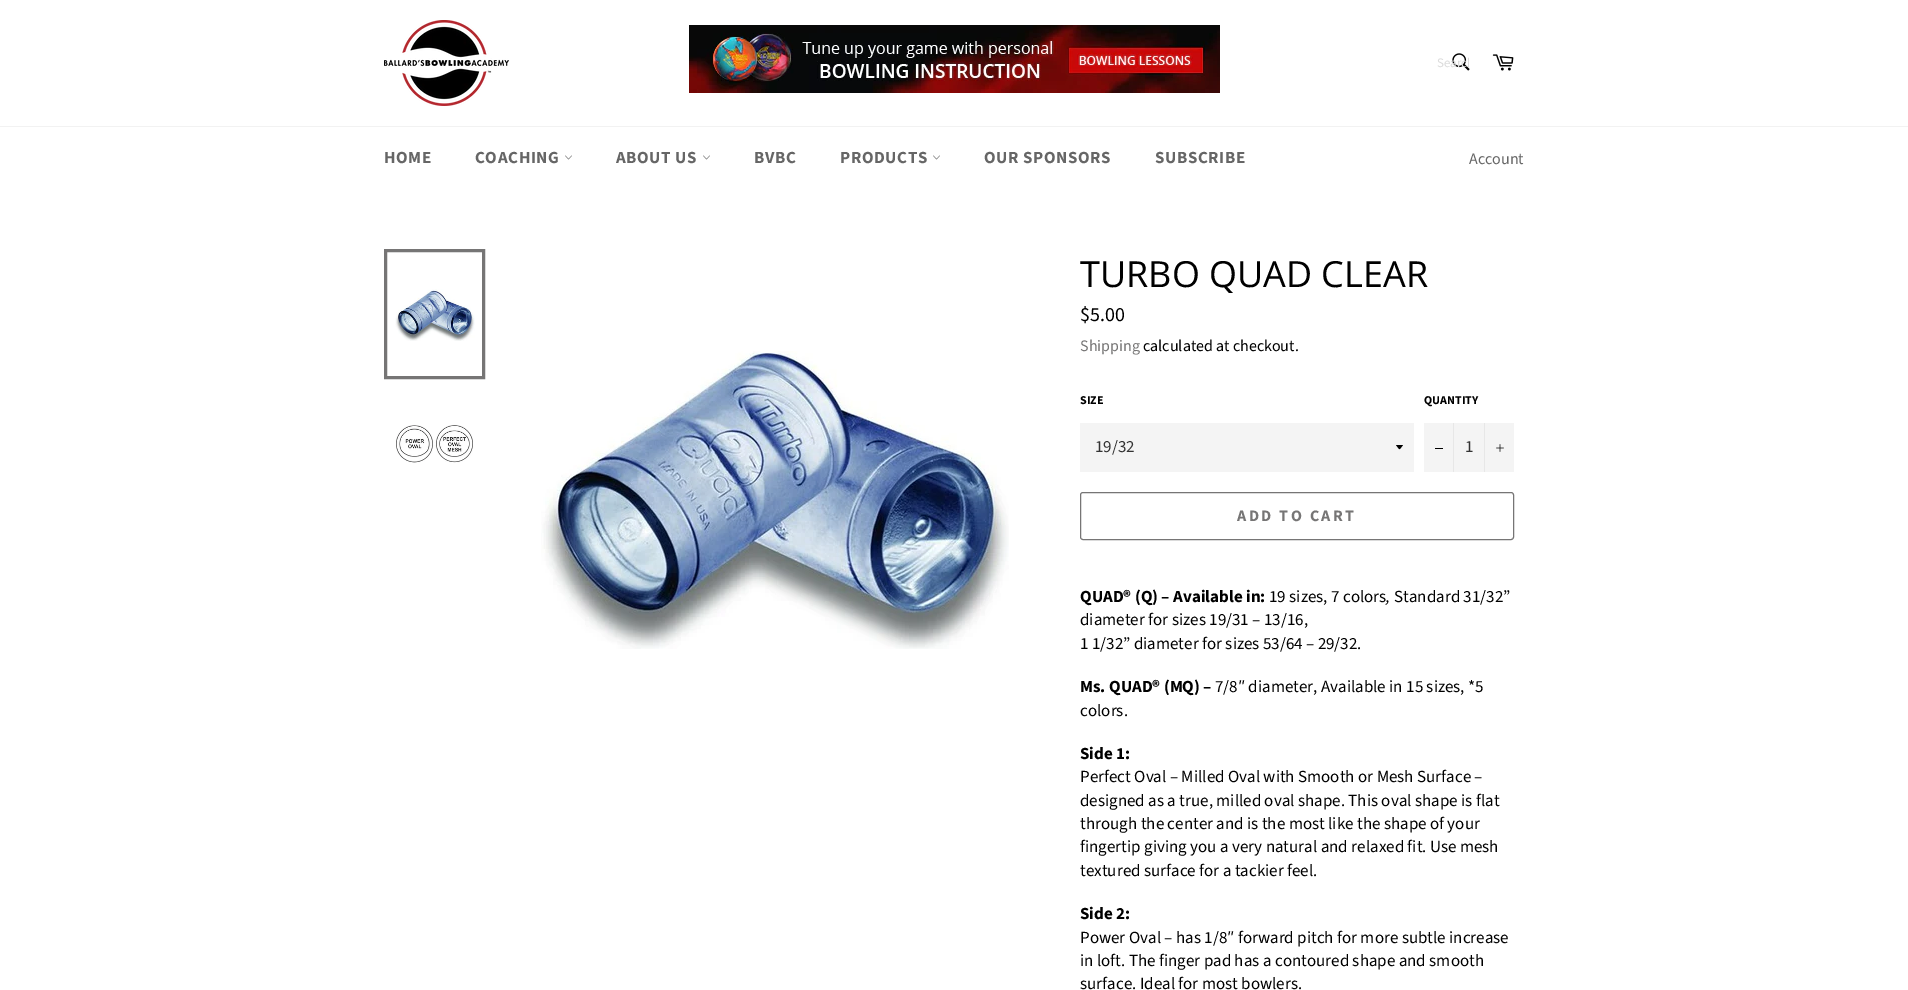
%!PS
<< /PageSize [1908 990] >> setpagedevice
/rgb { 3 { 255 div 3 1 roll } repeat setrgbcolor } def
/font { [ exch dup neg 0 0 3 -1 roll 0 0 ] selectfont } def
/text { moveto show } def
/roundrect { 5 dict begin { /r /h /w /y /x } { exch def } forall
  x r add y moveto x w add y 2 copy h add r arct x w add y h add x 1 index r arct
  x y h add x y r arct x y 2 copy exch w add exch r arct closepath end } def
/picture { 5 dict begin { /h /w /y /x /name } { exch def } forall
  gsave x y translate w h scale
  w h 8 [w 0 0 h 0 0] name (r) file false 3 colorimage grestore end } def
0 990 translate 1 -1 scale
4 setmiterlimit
255 255 255 rgb
0 0 1908 990 rectfill
(img_01.rgb) 384 20 125 86 picture
(img_02.rgb) 689 25 531 68 picture
(img_03.rgb) 1452 53 18 18 picture
(img_04.rgb) 1492 54 22 17 picture
242 242 242 rgb
0 126 1908 1 rectfill
(img_05.rgb) 565 155 7 5 picture
(img_05.rgb) 703 155 7 5 picture
(img_05.rgb) 933 155 7 5 picture
(img_06.rgb) 395 289 80 52 picture
118 117 117 rgb
3 setlinewidth
385.5 250.5 98 127 rectstroke
(img_07.rgb) 396 425 77 38 picture
(img_08.rgb) 541 351 468 298 picture
244 244 244 rgb
1080 423 334 49 rectfill
0 0 0 rgb
1396 445 moveto 4.5 5.5 2.5 5.5 7 0 rcurveto closepath fill
244 244 244 rgb
1424 423 90 49 rectfill
231 231 231 rgb
1453 423 1 49 rectfill
0 0 0 rgb
1435 448 8 1 rectfill
231 231 231 rgb
1484 423 1 49 rectfill
(img_09.rgb) 1496 444 8 8 picture
118 117 117 rgb
1 setlinewidth
1080.5 492.5 433 47 2.5 roundrect stroke
gsave
1437 54 32 18 rectclip
/SourceSansPro-Regular 13 font
220 220 220 rgb
(Search) 1437 67 text
grestore
/SourceSansPro-Bold 17 font
102 102 102 rgb
384 163 moveto 0.6 0 (HOME) ashow
475 163 moveto 0.6 0 (COACHING) ashow
616 163 moveto 0.6 0 (ABOUT US) ashow
754 163 moveto 0.6 0 (BVBC) ashow
840 163 moveto 0.6 0 (PRODUCTS) ashow
984 163 moveto 0.6 0 (OUR SPONSORS) ashow
1155 163 moveto 0.6 0 (SUBSCRIBE) ashow
/SourceSansPro-Regular 16 font
(Account) 1469 164 text
/OpenSans-Regular 36 font
0 0 0 rgb
(TURBO QUAD CLEAR) 1080 287 text
/SourceSansPro-Regular 20 font
($5.00) 1080 321 text
/SourceSansPro-Regular 16 font
118 117 117 rgb
(Shipping) 1080 351 text
0 0 0 rgb
(calculated at checkout.) 1143 351 text
/SourceSansPro-Bold 12 font
(SIZE) 1080 404 text
/SourceSansPro-Regular 17 font
51 51 51 rgb
(19/32) 1095 452 text
/SourceSansPro-Bold 12 font
0 0 0 rgb
(QUANTITY) 1424 404 text
/SourceSansPro-Regular 17 font
51 51 51 rgb
(1) 1465 452 text
/SourceSansPro-Bold 16 font
118 117 117 rgb
1237 521 moveto 2.4 0 (ADD TO CART) ashow
/SourceSansPro-Bold 17 font
0 0 0 rgb
(QUAD® \(Q\) – Available in:) 1080 602 text
/SourceSansPro-Regular 17 font
(19 sizes, 7 colors) 1269 602 text
/SourceSansPro-Italic 17 font
(,) 1386 602 text
/SourceSansPro-Regular 17 font
(Standard 31/32”) 1394 602 text
(diameter for sizes 19/31 – 13/16,) 1080 625 text
(1 1/32” diameter for sizes 53/64 – 29/32.) 1080 649 text
/SourceSansPro-Bold 17 font
(Ms. QUAD® \(MQ\) –) 1080 692 text
/SourceSansPro-Regular 17 font
(7/8″ diameter, Available in 15 sizes, *5) 1215 692 text
(colors.) 1080 716 text
/SourceSansPro-Bold 17 font
(Side 1:) 1080 759 text
/SourceSansPro-Regular 17 font
(Perfect Oval – Milled Oval with Smooth or Mesh Surface –) 1080 782 text
(designed as a true, milled oval shape. This oval shape is flat) 1080 806 text
(through the center and is the most like the shape of your) 1080 829 text
(fingertip giving you a very natural and relaxed fit. Use mesh) 1080 852 text
(textured surface for a tackier feel.) 1080 876 text
/SourceSansPro-Bold 17 font
(Side 2:) 1080 919 text
/SourceSansPro-Regular 17 font
(Power Oval – has 1/8″ forward pitch for more subtle increase) 1080 943 text
(in loft. The finger pad has a contoured shape and smooth) 1080 966 text
(surface. Ideal for most bowlers.) 1080 989 text
showpage
